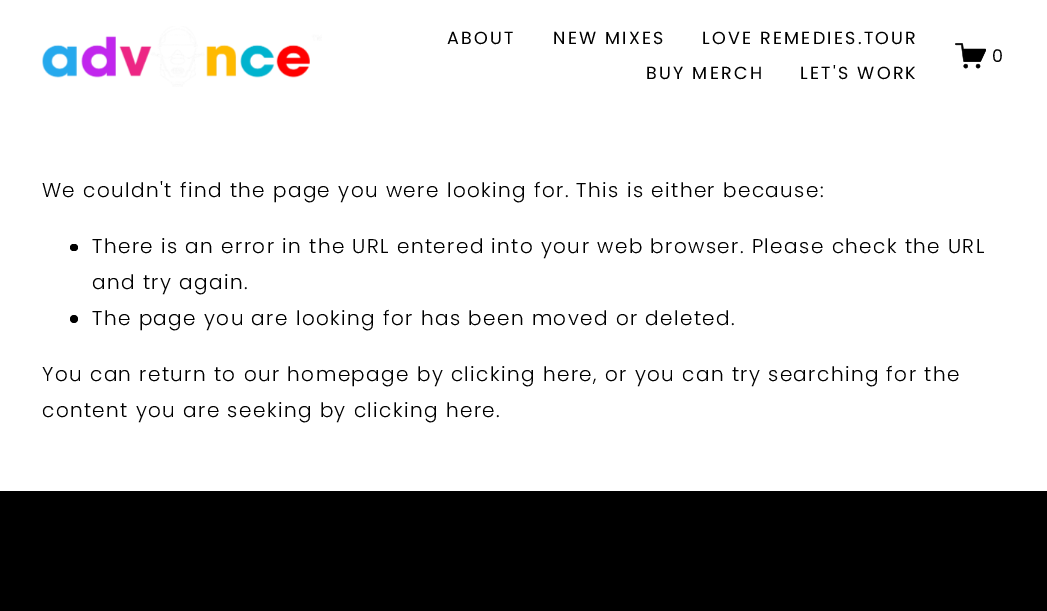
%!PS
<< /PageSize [1047 611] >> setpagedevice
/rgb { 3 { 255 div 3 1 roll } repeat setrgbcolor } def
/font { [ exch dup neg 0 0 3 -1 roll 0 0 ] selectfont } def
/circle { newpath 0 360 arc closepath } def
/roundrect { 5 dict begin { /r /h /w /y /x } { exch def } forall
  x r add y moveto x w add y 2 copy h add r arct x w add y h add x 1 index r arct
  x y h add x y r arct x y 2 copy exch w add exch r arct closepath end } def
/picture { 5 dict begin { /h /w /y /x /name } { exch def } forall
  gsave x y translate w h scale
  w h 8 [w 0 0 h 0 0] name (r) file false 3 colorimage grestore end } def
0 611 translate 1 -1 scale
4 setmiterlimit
255 255 255 rgb
0 0 1047 611 rectfill
(img_01.rgb) 42 26 280 61 picture
(img_02.rgb) 955 43 31 26 picture
0 0 0 rgb
70 244 8 7 3.5 roundrect fill
74 319 4 circle fill
0 491 1047 120 rectfill
/Poppins-Regular 17.5 font
447 44 moveto 2.25 0 (ABOUT) ashow
553 44 moveto 2.25 0 (NEW MIXES) ashow
702 44 moveto 2.25 0 (LOVE REMEDIES.TOUR) ashow
646 79 moveto 2.25 0 (BUY MERCH) ashow
800 79 moveto 2.25 0 (LET'S WORK) ashow
992 62 moveto 2.25 0 (0) ashow
/Poppins-Light 20 font
42 197 moveto 1.4 0 (We couldn't find the page you were looking for. This is either because:) ashow
92 253 moveto 1.4 0 (There is an error in the URL entered into your web browser. Please check the URL) ashow
92 289 moveto 1.4 0 (and try again.) ashow
92 325 moveto 1.4 0 (The page you are looking for has been moved or deleted.) ashow
42 381 moveto 1.4 0 (You can return to our homepage by clicking here, or you can try searching for the) ashow
42 417 moveto 1.4 0 (content you are seeking by clicking here.) ashow
showpage
